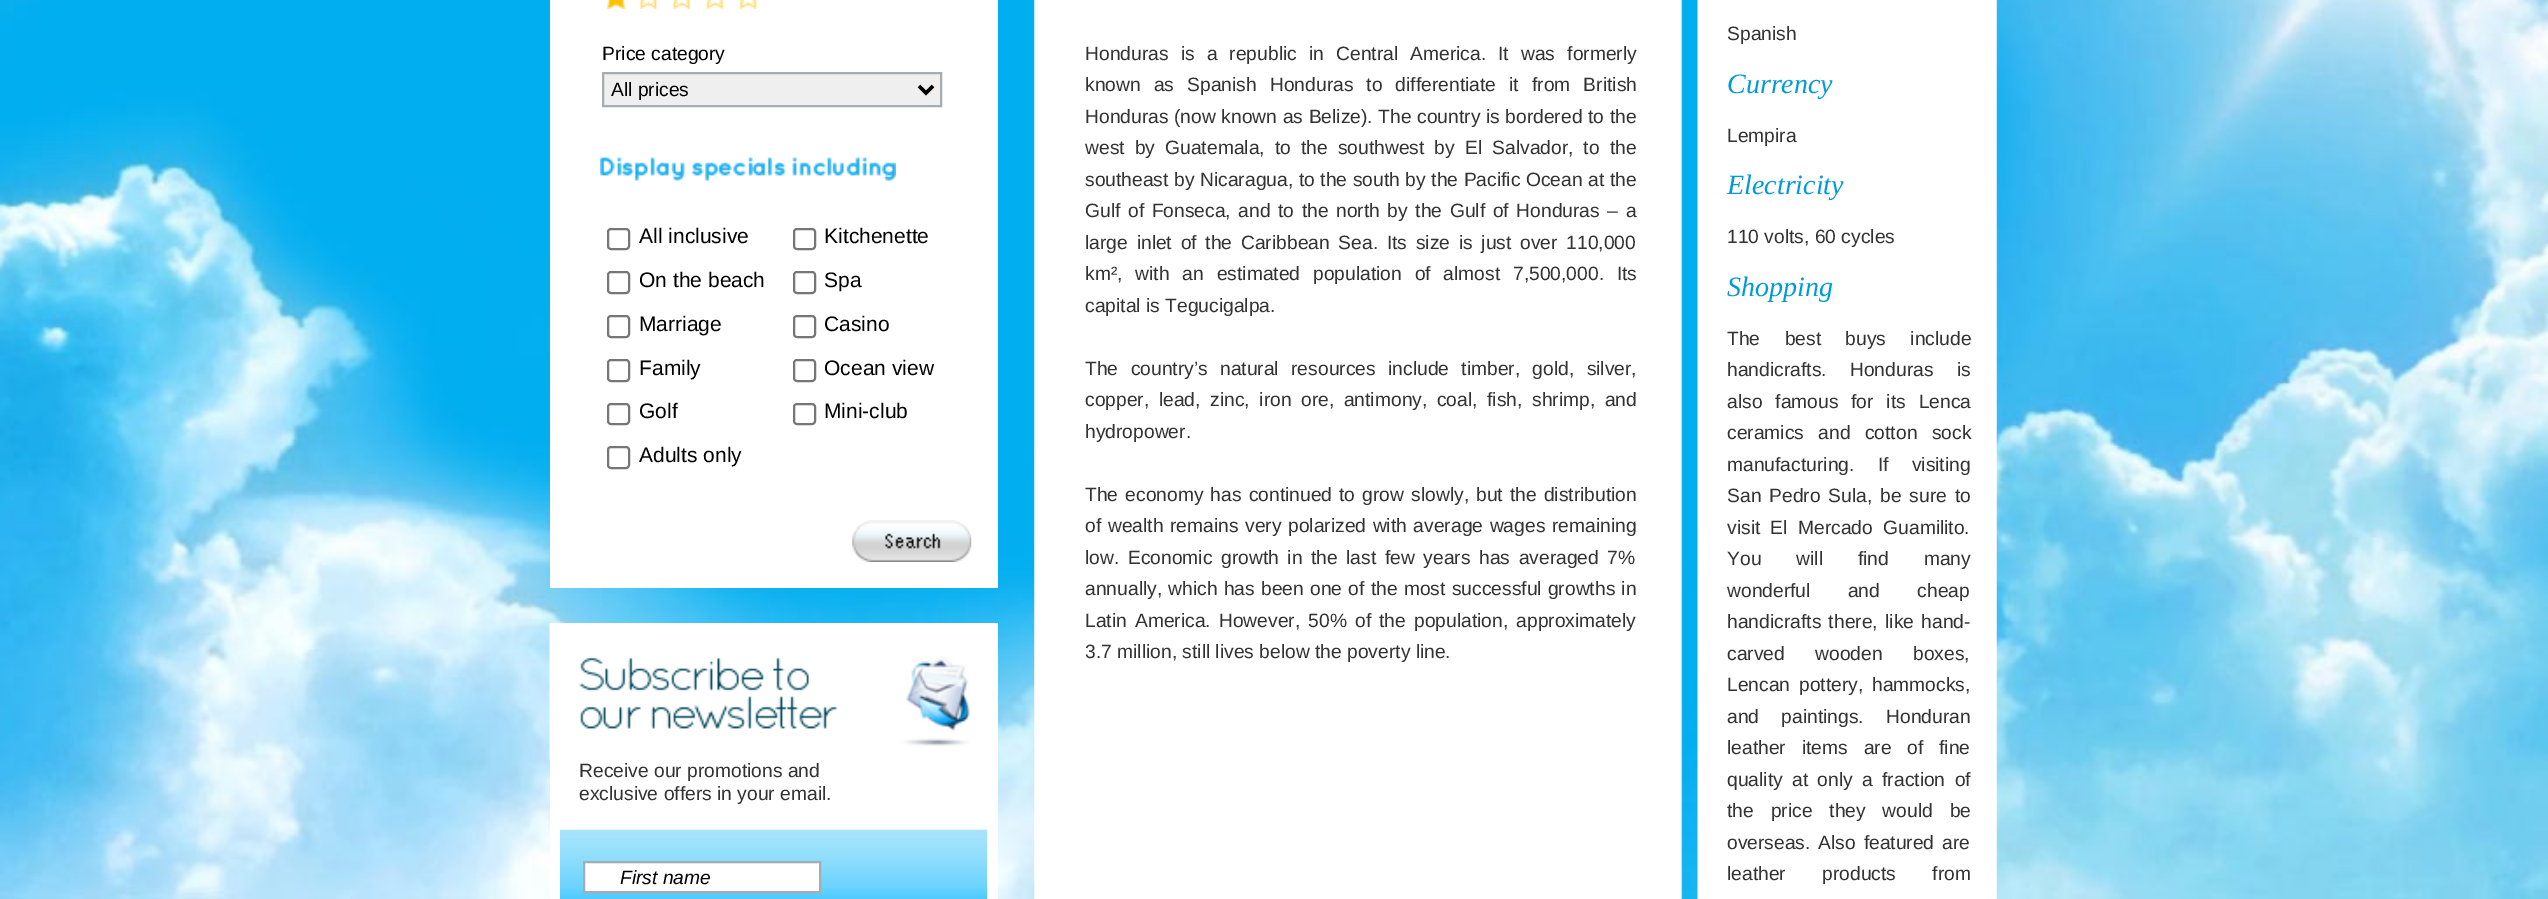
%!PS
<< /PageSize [2548 899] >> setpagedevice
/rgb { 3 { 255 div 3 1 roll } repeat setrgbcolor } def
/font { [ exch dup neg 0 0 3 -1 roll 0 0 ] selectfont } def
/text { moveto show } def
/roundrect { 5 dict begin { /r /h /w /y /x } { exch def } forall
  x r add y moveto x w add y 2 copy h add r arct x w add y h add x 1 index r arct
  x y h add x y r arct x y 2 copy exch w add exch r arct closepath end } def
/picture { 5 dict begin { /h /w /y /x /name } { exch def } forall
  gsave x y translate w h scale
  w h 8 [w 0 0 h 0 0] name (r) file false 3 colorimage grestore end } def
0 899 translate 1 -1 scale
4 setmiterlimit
255 255 255 rgb
0 0 2548 899 rectfill
(img_01.rgb) 0 0 2548 899 picture
550 0 448 588 rectfill
(img_02.rgb) 606 0 20 9 picture
(img_03.rgb) 638 0 20 9 picture
(img_04.rgb) 672 0 20 9 picture
(img_05.rgb) 705 0 20 9 picture
(img_06.rgb) 738 0 20 9 picture
239 239 239 rgb
603 73 moveto 338 0 rlineto 0 33 rlineto -338 0 rlineto closepath gsave fill grestore
165 172 178 rgb
2 setlinewidth
stroke
0 0 0 rgb
3.5 setlinewidth
919 86 moveto 7 7 rlineto 7 -7 rlineto stroke
(img_07.rgb) 600 157 296 24 picture
118 118 118 rgb
2 setlinewidth
608 229 21 20 3 roundrect stroke
794 229 21 20 3 roundrect stroke
608 272 21 21 3 roundrect stroke
794 272 21 21 3 roundrect stroke
608 316 21 21 3 roundrect stroke
794 316 21 21 3 roundrect stroke
608 360 21 21 3 roundrect stroke
794 360 21 21 3 roundrect stroke
608 404 21 20 3 roundrect stroke
794 404 21 20 3 roundrect stroke
608 447 21 21 3 roundrect stroke
(img_08.rgb) 852 520 120 42 picture
255 255 255 rgb
550 623 448 276 rectfill
(img_09.rgb) 549 623 421 137 picture
(img_10.rgb) 560 829 427 70 picture
584 862 moveto 236 0 rlineto 0 30 rlineto -236 0 rlineto closepath gsave fill grestore
165 172 178 rgb
stroke
(img_11.rgb) 1034 0 963 899 picture
/LiberationSans-Regular 19.25 font
0 0 0 rgb
(Price category) 602 60 text
(All prices) 611 96 text
/LiberationSans-Regular 21 font
(All inclusive) 639 243 text
(Kitchenette) 824 243 text
(On the beach) 639 287 text
(Spa) 824 287 text
(Marriage) 639 331 text
(Casino) 824 331 text
(Family) 639 375 text
(Ocean view) 824 375 text
(Golf) 639 418 text
(Mini-club) 824 418 text
(Adults only) 639 462 text
/LiberationSans-Regular 19.25 font
51 51 51 rgb
(Receive our promotions and) 579 777 text
(exclusive offers in your email.) 579 800 text
/LiberationSans-Italic 19.25 font
0 0 0 rgb
(First name) 620 884 text
/LiberationSans-Regular 19.25 font
51 51 51 rgb
1085 60 moveto 6.75 0 32 (Honduras is a republic in Central America. It was formerly) widthshow
1085 91 moveto 7.75 0 32 (known as Spanish Honduras to differentiate it from British) widthshow
1085 123 moveto 0.25 0 32 (Honduras \(now known as Belize\). The country is bordered to the) widthshow
1085 154 moveto 4.75 0 32 (west by Guatemala, to the southwest by El Salvador, to the) widthshow
1085 186 moveto 0.25 0 32 (southeast by Nicaragua, to the south by the Pacific Ocean at the) widthshow
1085 217 moveto 2.25 0 32 (Gulf of Fonseca, and to the north by the Gulf of Honduras – a) widthshow
1085 249 moveto 3.4 0 32 (large inlet of the Caribbean Sea. Its size is just over 110,000) widthshow
1085 280 moveto 7.5 0 32 (km², with an estimated population of almost 7,500,000. Its) widthshow
(capital is Tegucigalpa.) 1085 312 text
1085 375 moveto 7 0 32 (The country’s natural resources include timber, gold, silver,) widthshow
1085 406 moveto 4.25 0 32 (copper, lead, zinc, iron ore, antimony, coal, fish, shrimp, and) widthshow
(hydropower.) 1085 438 text
1085 501 moveto 1.75 0 32 (The economy has continued to grow slowly, but the distribution) widthshow
1085 532 moveto 1.25 0 32 (of wealth remains very polarized with average wages remaining) widthshow
1085 564 moveto 3.25 0 32 (low. Economic growth in the last few years has averaged 7%) widthshow
1085 595 moveto 0.9 0 32 (annually, which has been one of the most successful growths in) widthshow
1085 627 moveto 2.75 0 32 (Latin America. However, 50% of the population, approximately) widthshow
(3.7 million, still lives below the poverty line.) 1085 658 text
(Spanish) 1727 40 text
/LiberationSerif-Italic 28 font
0 154 213 rgb
(Currency) 1727 93 text
/LiberationSans-Regular 19.25 font
51 51 51 rgb
(Lempira) 1727 142 text
/LiberationSerif-Italic 28 font
0 154 213 rgb
(Electricity) 1727 194 text
/LiberationSans-Regular 19.25 font
51 51 51 rgb
(110 volts, 60 cycles) 1727 243 text
/LiberationSerif-Italic 28 font
0 154 213 rgb
(Shopping) 1727 296 text
/LiberationSans-Regular 19.25 font
51 51 51 rgb
1727 345 moveto 19 0 32 (The best buys include) widthshow
1727 376 moveto 18 0 32 (handicrafts. Honduras is) widthshow
1727 408 moveto 7.5 0 32 (also famous for its Lenca) widthshow
1727 439 moveto 9 0 32 (ceramics and cotton sock) widthshow
1727 471 moveto 18 0 32 (manufacturing. If visiting) widthshow
1727 502 moveto 2.5 0 32 (San Pedro Sula, be sure to) widthshow
1727 534 moveto 5 0 32 (visit El Mercado Guamilito.) widthshow
1727 565 moveto 29.5 0 32 (You will find many) widthshow
1727 597 moveto 32 0 32 (wonderful and cheap) widthshow
1727 628 moveto 2 0 32 (handicrafts there, like hand-) widthshow
1727 660 moveto 25 0 32 (carved wooden boxes,) widthshow
1727 691 moveto 3.4 0 32 (Lencan pottery, hammocks,) widthshow
1727 723 moveto 17 0 32 (and paintings. Honduran) widthshow
1727 754 moveto 10.5 0 32 (leather items are of fine) widthshow
1727 786 moveto 4 0 32 (quality at only a fraction of) widthshow
1727 817 moveto 11.5 0 32 (the price they would be) widthshow
1727 849 moveto 2.5 0 32 (overseas. Also featured are) widthshow
1727 880 moveto 31 0 32 (leather products from) widthshow
showpage
